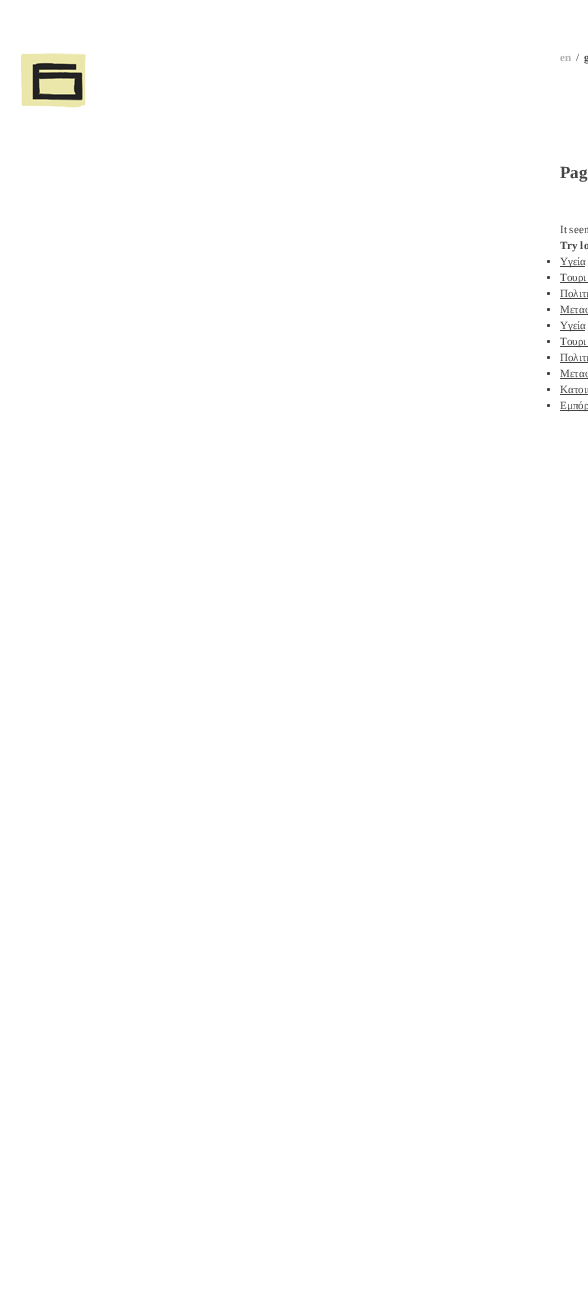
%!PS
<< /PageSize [588 1310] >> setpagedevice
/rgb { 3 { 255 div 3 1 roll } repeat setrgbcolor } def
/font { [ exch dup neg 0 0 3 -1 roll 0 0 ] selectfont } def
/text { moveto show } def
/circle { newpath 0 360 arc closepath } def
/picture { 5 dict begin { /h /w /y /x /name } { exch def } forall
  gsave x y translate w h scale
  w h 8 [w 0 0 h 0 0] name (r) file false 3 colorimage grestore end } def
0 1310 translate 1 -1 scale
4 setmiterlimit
255 255 255 rgb
0 0 588 1310 rectfill
(img_01.rgb) 20 53 66 55 picture
68 68 68 rgb
548.5 261.5 1.5 circle fill
560 266 25 1 rectfill
548.5 277.5 1.5 circle fill
560 282 28 1 rectfill
548.5 293.5 1.5 circle fill
560 298 28 1 rectfill
548.5 309.5 1.5 circle fill
560 314 28 1 rectfill
548.5 325.5 1.5 circle fill
560 330 25 1 rectfill
548.5 341.5 1.5 circle fill
560 346 28 1 rectfill
548.5 357.5 1.5 circle fill
560 362 28 1 rectfill
548.5 373.5 1.5 circle fill
560 378 28 1 rectfill
548.5 389.5 1.5 circle fill
560 394 28 1 rectfill
548.5 405.5 1.5 circle fill
560 410 28 1 rectfill
/LiberationSerif-Bold 11 font
181 177 177 rgb
(en) 560 61 text
/LiberationSerif-Regular 11 font
68 68 68 rgb
(/) 576 61 text
/LiberationSerif-Bold 11 font
(g) 584 61 text
/LiberationSerif-Bold 17 font
(Pag) 560 178 text
/LiberationSerif-Regular 11 font
(It seem) 560 233 text
/LiberationSerif-Bold 11 font
(Try lo) 560 249 text
/LiberationSerif-Regular 11 font
(Υγεία) 560 265 text
(Τουρι) 560 281 text
(Πολιτι) 560 297 text
(Μεταφ) 560 313 text
(Υγεία) 560 329 text
(Τουρι) 560 345 text
(Πολιτι) 560 361 text
(Μεταφ) 560 377 text
(Κατοικ) 560 393 text
(Εμπόρ) 560 409 text
showpage
